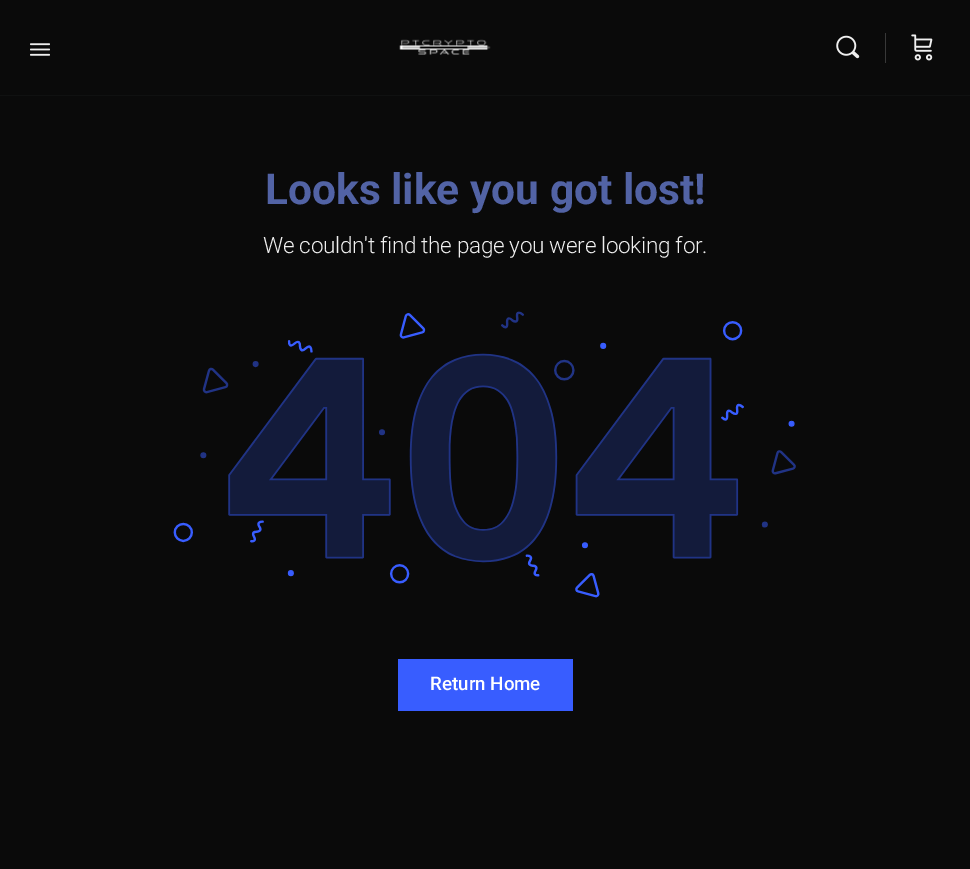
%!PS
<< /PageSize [970 869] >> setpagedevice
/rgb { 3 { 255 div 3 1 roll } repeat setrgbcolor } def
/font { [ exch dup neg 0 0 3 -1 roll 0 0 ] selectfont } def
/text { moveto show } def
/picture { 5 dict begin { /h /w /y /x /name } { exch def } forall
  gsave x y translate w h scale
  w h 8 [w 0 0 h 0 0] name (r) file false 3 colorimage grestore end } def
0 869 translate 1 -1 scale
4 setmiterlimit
10 10 10 rgb
0 0 970 869 rectfill
16 17 17 rgb
0 95 970 1 rectfill
(img_01.rgb) 30 43 20 13 picture
(img_02.rgb) 399 39 92 16 picture
(img_03.rgb) 836 35 24 24 picture
56 56 56 rgb
885 33 1 30 rectfill
(img_04.rgb) 911 34 22 27 picture
(img_05.rgb) 173 311 623 287 picture
56 93 255 rgb
398 659 175 52 rectfill
/Roboto-Bold 42.5 font
82 99 165 rgb
(Looks like you got lost!) 265 204 text
/Roboto-Light 22.5 font
239 239 239 rgb
263 253 moveto -0.3 0 (We couldn't find the page you were looking for.) ashow
/Roboto-Medium 18.75 font
255 255 255 rgb
(Return Home) 430 690 text
showpage
